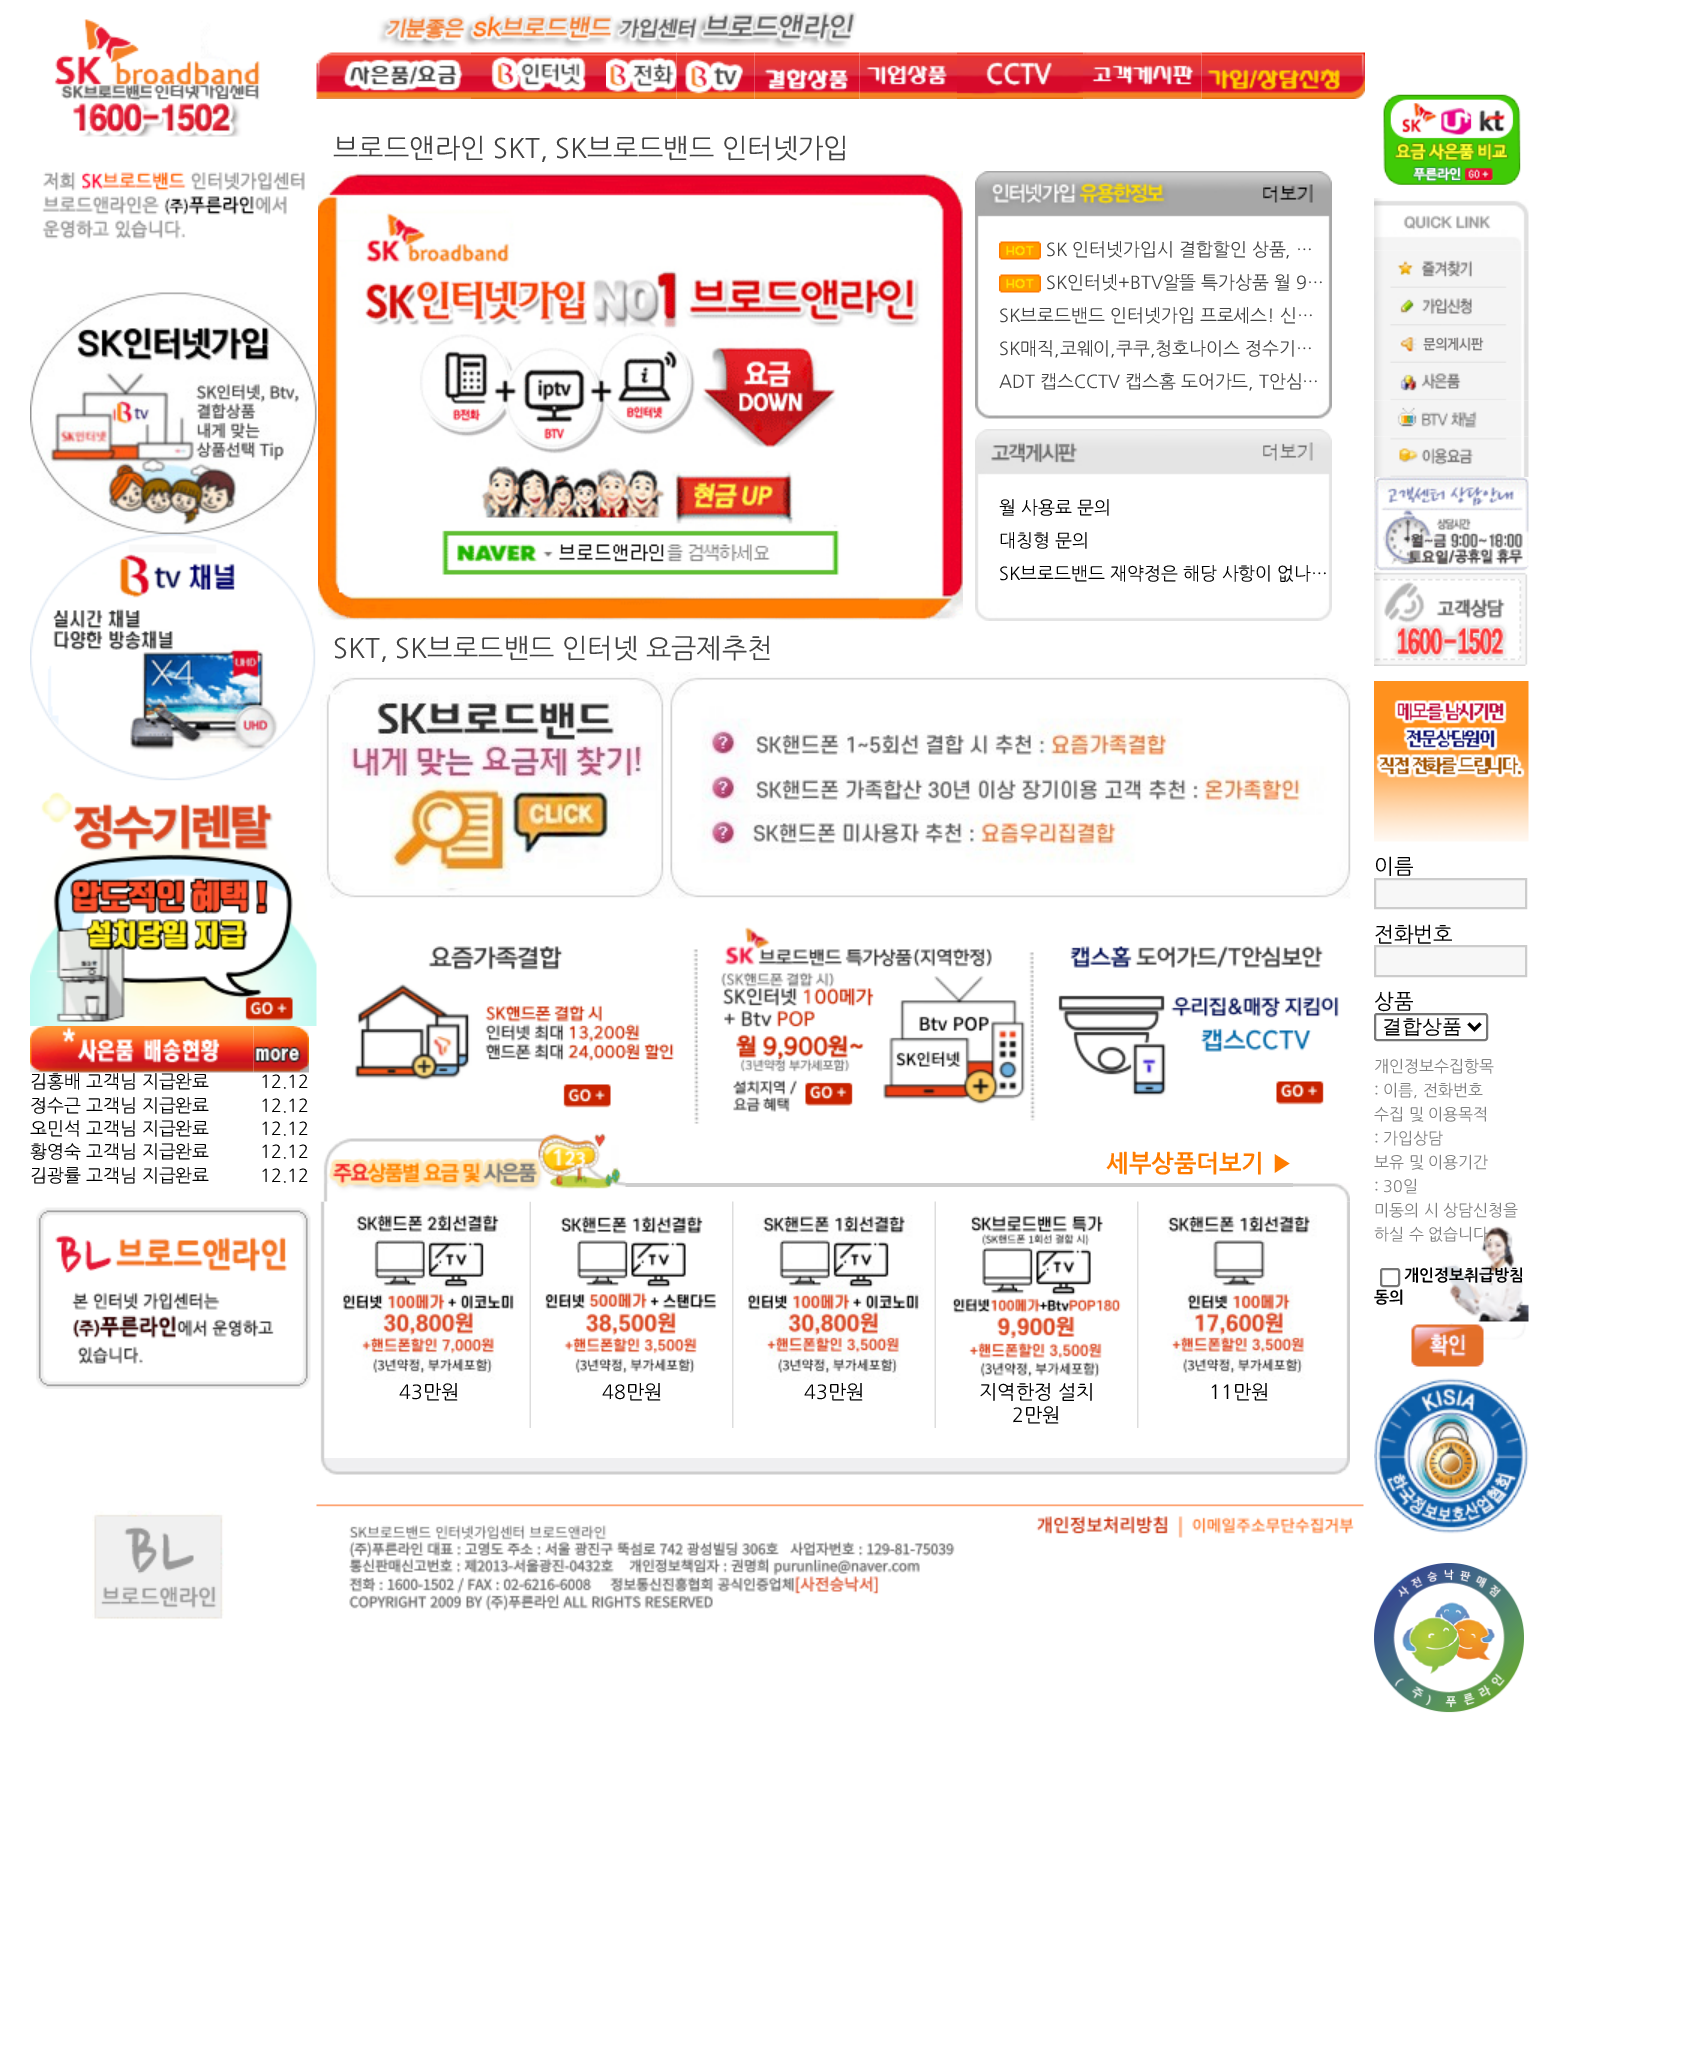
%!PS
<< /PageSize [1699 2058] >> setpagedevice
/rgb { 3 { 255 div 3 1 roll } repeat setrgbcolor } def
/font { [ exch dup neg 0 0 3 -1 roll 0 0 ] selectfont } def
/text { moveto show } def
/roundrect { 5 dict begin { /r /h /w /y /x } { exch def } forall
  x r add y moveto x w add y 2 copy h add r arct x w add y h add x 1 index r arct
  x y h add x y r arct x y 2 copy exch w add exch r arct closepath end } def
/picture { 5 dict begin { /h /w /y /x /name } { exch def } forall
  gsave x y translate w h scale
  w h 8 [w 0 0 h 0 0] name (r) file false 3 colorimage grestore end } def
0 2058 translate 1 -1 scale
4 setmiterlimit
255 255 255 rgb
0 0 1699 2058 rectfill
(img_01.rgb) 377 11 480 38 picture
(img_02.rgb) 54 19 206 118 picture
(img_03.rgb) 316 52 155 47 picture
(img_04.rgb) 471 52 135 47 picture
(img_05.rgb) 606 52 71 47 picture
(img_06.rgb) 676 52 79 47 picture
(img_07.rgb) 754 52 106 47 picture
(img_08.rgb) 859 52 98 47 picture
(img_09.rgb) 957 52 126 47 picture
(img_10.rgb) 1083 52 119 47 picture
(img_11.rgb) 1201 52 164 47 picture
(img_12.rgb) 42 172 263 67 picture
(img_13.rgb) 30 292 287 242 picture
(img_14.rgb) 30 534 286 247 picture
(img_15.rgb) 30 792 287 234 picture
(img_16.rgb) 30 1026 224 47 picture
(img_17.rgb) 253 1026 56 47 picture
(img_18.rgb) 35 1072 19 14 picture
(img_19.rgb) 41 1105 5 5 picture
(img_20.rgb) 41 1128 5 5 picture
(img_21.rgb) 41 1152 5 4 picture
(img_22.rgb) 41 1175 5 4 picture
(img_23.rgb) 36 1207 275 182 picture
(img_24.rgb) 318 171 645 450 picture
(img_25.rgb) 975 171 357 248 picture
(img_26.rgb) 1263 184 50 19 picture
(img_27.rgb) 999 241 42 19 picture
(img_27.rgb) 999 274 42 19 picture
(img_28.rgb) 975 429 357 192 picture
(img_29.rgb) 1263 442 50 19 picture
(img_30.rgb) 320 672 1031 227 picture
(img_31.rgb) 354 927 985 197 picture
206 206 206 rgb
625 1183 668 4 rectfill
(img_34.rgb) 320 1201 5 227 picture
(img_36.rgb) 529 1201 2 227 picture
(img_32.rgb) 321 1133 305 69 picture
(img_42.rgb) 1346 1201 4 227 picture
(img_33.rgb) 1293 1183 57 19 picture
(img_35.rgb) 342 1214 177 166 picture
(img_37.rgb) 545 1216 172 157 picture
(img_38.rgb) 732 1201 2 227 picture
(img_39.rgb) 746 1214 178 166 picture
(img_36.rgb) 934 1201 2 227 picture
(img_40.rgb) 952 1216 169 162 picture
(img_38.rgb) 1137 1201 2 227 picture
(img_41.rgb) 1167 1214 150 166 picture
(img_43.rgb) 320 1428 5 30 picture
(img_44.rgb) 1346 1428 4 30 picture
(img_45.rgb) 320 1458 1030 17 picture
(img_46.rgb) 92 1510 132 110 picture
(img_47.rgb) 316 1504 1048 108 picture
(img_48.rgb) 1383 94 138 91 picture
(img_49.rgb) 1374 198 155 53 picture
(img_50.rgb) 1374 250 155 38 picture
(img_51.rgb) 1374 288 155 36 picture
(img_52.rgb) 1374 324 155 39 picture
(img_53.rgb) 1374 363 155 38 picture
(img_54.rgb) 1374 400 155 37 picture
(img_55.rgb) 1374 436 155 41 picture
(img_56.rgb) 1374 477 155 94 picture
(img_57.rgb) 1374 571 154 95 picture
(img_58.rgb) 1374 681 155 161 picture
(img_59.rgb) 1441 1226 88 96 picture
247 247 247 rgb
1375 879 moveto 151 0 rlineto 0 29 rlineto -151 0 rlineto closepath gsave fill grestore
204 204 204 rgb
2 setlinewidth
stroke
247 247 247 rgb
1375 946 moveto 151 0 rlineto 0 30 rlineto -151 0 rlineto closepath gsave fill grestore
204 204 204 rgb
stroke
118 118 118 rgb
1375 1014 112 26 2 roundrect stroke
0 0 0 rgb
3 setlinewidth
1468.5 1023.5 moveto 6 6 rlineto 6 -6 rlineto stroke
118 118 118 rgb
2 setlinewidth
1381 1269 18 17 2 roundrect stroke
(img_60.rgb) 1411 1323 115 42 picture
(img_61.rgb) 1374 1365 155 169 picture
(img_62.rgb) 1374 1563 150 150 picture
/NanumGothic-Regular 18 font
0 0 0 rgb
(김홍배 고객님 지급완료) 30 1088 text
(12.12) 260 1088 text
(정수근 고객님 지급완료) 30 1112 text
(12.12) 260 1112 text
(오민석 고객님 지급완료) 30 1135 text
(12.12) 260 1135 text
(황영숙 고객님 지급완료) 30 1158 text
(12.12) 260 1158 text
(김광률 고객님 지급완료) 30 1182 text
(12.12) 260 1182 text
/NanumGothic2-Regular 27 font
67 67 67 rgb
(브로드앤라인 SKT, SK브로드밴드 인터넷가입) 333 158 text
/NanumGothic-Regular 18 font
(SK 인터넷가입시 결합할인 상품, …) 1046 256 text
(SK인터넷+BTV알뜰 특가상품 월 9…) 1046 289 text
(SK브로드밴드 인터넷가입 프로세스! 신…) 999 322 text
(SK매직,코웨이,쿠쿠,청호나이스 정수기…) 999 355 text
(ADT 캡스CCTV 캡스홈 도어가드, T안심…) 999 388 text
0 0 0 rgb
(월 사용료 문의) 999 514 text
(대칭형 문의) 999 547 text
(SK브로드밴드 재약정은 해당 사항이 없나…) 999 580 text
/NanumGothic2-Regular 27 font
67 67 67 rgb
(SKT, SK브로드밴드 인터넷 요금제추천) 333 658 text
/NanumGothic-Bold 24 font
255 124 0 rgb
(세부상품더보기 ▶) 1106 1172 text
/NanumGothic-Regular 19.5 font
0 0 0 rgb
(43만원) 399 1399 text
(48만원) 602 1399 text
(43만원) 804 1399 text
(지역한정 설치) 979 1399 text
(2만원) 1012 1422 text
(11만원) 1209 1399 text
/NanumGothic-Regular 21 font
(이름) 1374 874 text
(전화번호) 1374 942 text
(상품) 1374 1009 text
/WenQuanYiZenHei-Medium 20 font
(결합상품) 1382 1033 text
/NanumGothic-Regular 16 font
128 128 128 rgb
(개인정보수집항목) 1374 1072 text
(: 이름, 전화번호) 1374 1096 text
(수집 및 이용목적) 1374 1120 text
(: 가입상담) 1374 1144 text
(보유 및 이용기간) 1374 1168 text
(: 30일) 1374 1192 text
(미동의 시 상담신청을) 1374 1216 text
(하실 수 없습니다.) 1374 1240 text
/NanumGothic-Bold 16 font
0 0 0 rgb
(개인정보취급방침) 1404 1281 text
(동의) 1374 1303 text
showpage
